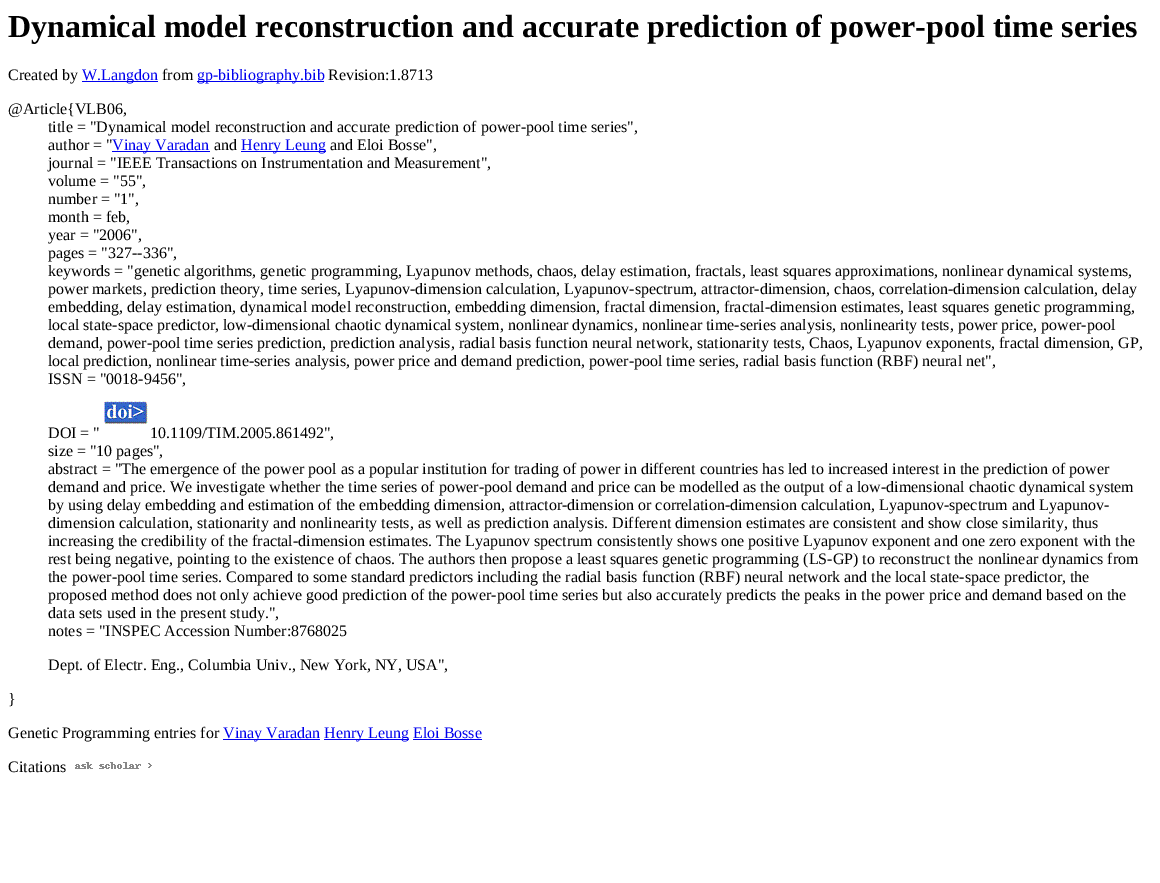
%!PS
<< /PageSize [1160 883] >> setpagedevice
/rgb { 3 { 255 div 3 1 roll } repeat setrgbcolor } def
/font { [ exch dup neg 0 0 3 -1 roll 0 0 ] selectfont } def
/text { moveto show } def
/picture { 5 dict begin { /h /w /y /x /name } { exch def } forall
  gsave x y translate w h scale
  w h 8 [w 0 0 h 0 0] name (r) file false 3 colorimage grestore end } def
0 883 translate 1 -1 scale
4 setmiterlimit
255 255 255 rgb
0 0 1160 883 rectfill
0 0 238 rgb
82 81 76 1 rectfill
197 81 127 1 rectfill
112 151 98 1 rectfill
241 151 85 1 rectfill
(img_01.rgb) 104 401 44 23 picture
223 739 97 1 rectfill
324 739 85 1 rectfill
413 739 69 1 rectfill
(img_02.rgb) 75 762 77 7 picture
/LiberationSerif-Bold 32 font
0 0 0 rgb
(Dynamical model reconstruction and accurate prediction of power-pool time series) 8 37 text
/LiberationSerif-Regular 16 font
(Created by) 8 80 text
0 0 238 rgb
(W.Langdon) 82 80 text
0 0 0 rgb
(from) 162 80 text
0 0 238 rgb
(gp-bibliography.bib) 197 80 text
0 0 0 rgb
(Revision:1.8713) 328 80 text
(@Article{VLB06,) 8 114 text
(title = "Dynamical model reconstruction and accurate prediction of power-pool time series",) 48 132 text
(author = ") 48 150 text
0 0 238 rgb
(Vinay Varadan) 112 150 text
0 0 0 rgb
(and) 214 150 text
0 0 238 rgb
(Henry Leung) 241 150 text
0 0 0 rgb
(and Eloi Bosse",) 330 150 text
(journal = "IEEE Transactions on Instrumentation and Measurement",) 48 168 text
(volume = "55",) 48 186 text
(number = "1",) 48 204 text
(month = feb,) 48 222 text
(year = "2006",) 48 240 text
(pages = "327--336",) 48 258 text
(keywords = "genetic algorithms, genetic programming, Lyapunov methods, chaos, delay estimation, fractals, least squares approximations, nonlinear dynamical systems,) 48 276 text
(power markets, prediction theory, time series, Lyapunov-dimension calculation, Lyapunov-spectrum, attractor-dimension, chaos, correlation-dimension calculation, delay) 48 294 text
(embedding, delay estimation, dynamical model reconstruction, embedding dimension, fractal dimension, fractal-dimension estimates, least squares genetic programming,) 48 312 text
(local state-space predictor, low-dimensional chaotic dynamical system, nonlinear dynamics, nonlinear time-series analysis, nonlinearity tests, power price, power-pool) 48 330 text
(demand, power-pool time series prediction, prediction analysis, radial basis function neural network, stationarity tests, Chaos, Lyapunov exponents, fractal dimension, GP,) 48 348 text
(local prediction, nonlinear time-series analysis, power price and demand prediction, power-pool time series, radial basis function \(RBF\) neural net",) 48 366 text
(ISSN = "0018-9456",) 48 384 text
(DOI = ") 48 438 text
(10.1109/TIM.2005.861492",) 150 438 text
(size = "10 pages",) 48 456 text
(abstract = "The emergence of the power pool as a popular institution for trading of power in different countries has led to increased interest in the prediction of power) 48 474 text
(demand and price. We investigate whether the time series of power-pool demand and price can be modelled as the output of a low-dimensional chaotic dynamical system) 48 492 text
(by using delay embedding and estimation of the embedding dimension, attractor-dimension or correlation-dimension calculation, Lyapunov-spectrum and Lyapunov-) 48 510 text
(dimension calculation, stationarity and nonlinearity tests, as well as prediction analysis. Different dimension estimates are consistent and show close similarity, thus) 48 528 text
(increasing the credibility of the fractal-dimension estimates. The Lyapunov spectrum consistently shows one positive Lyapunov exponent and one zero exponent with the) 48 546 text
(rest being negative, pointing to the existence of chaos. The authors then propose a least squares genetic programming \(LS-GP\) to reconstruct the nonlinear dynamics from) 48 564 text
(the power-pool time series. Compared to some standard predictors including the radial basis function \(RBF\) neural network and the local state-space predictor, the) 48 582 text
(proposed method does not only achieve good prediction of the power-pool time series but also accurately predicts the peaks in the power price and demand based on the) 48 600 text
(data sets used in the present study.",) 48 618 text
(notes = "INSPEC Accession Number:8768025) 48 636 text
(Dept. of Electr. Eng., Columbia Univ., New York, NY, USA",) 48 670 text
(}) 8 704 text
(Genetic Programming entries for) 8 738 text
0 0 238 rgb
(Vinay Varadan) 223 738 text
(Henry Leung Eloi Bosse) 324 738 text
0 0 0 rgb
(Citations) 8 772 text
showpage
